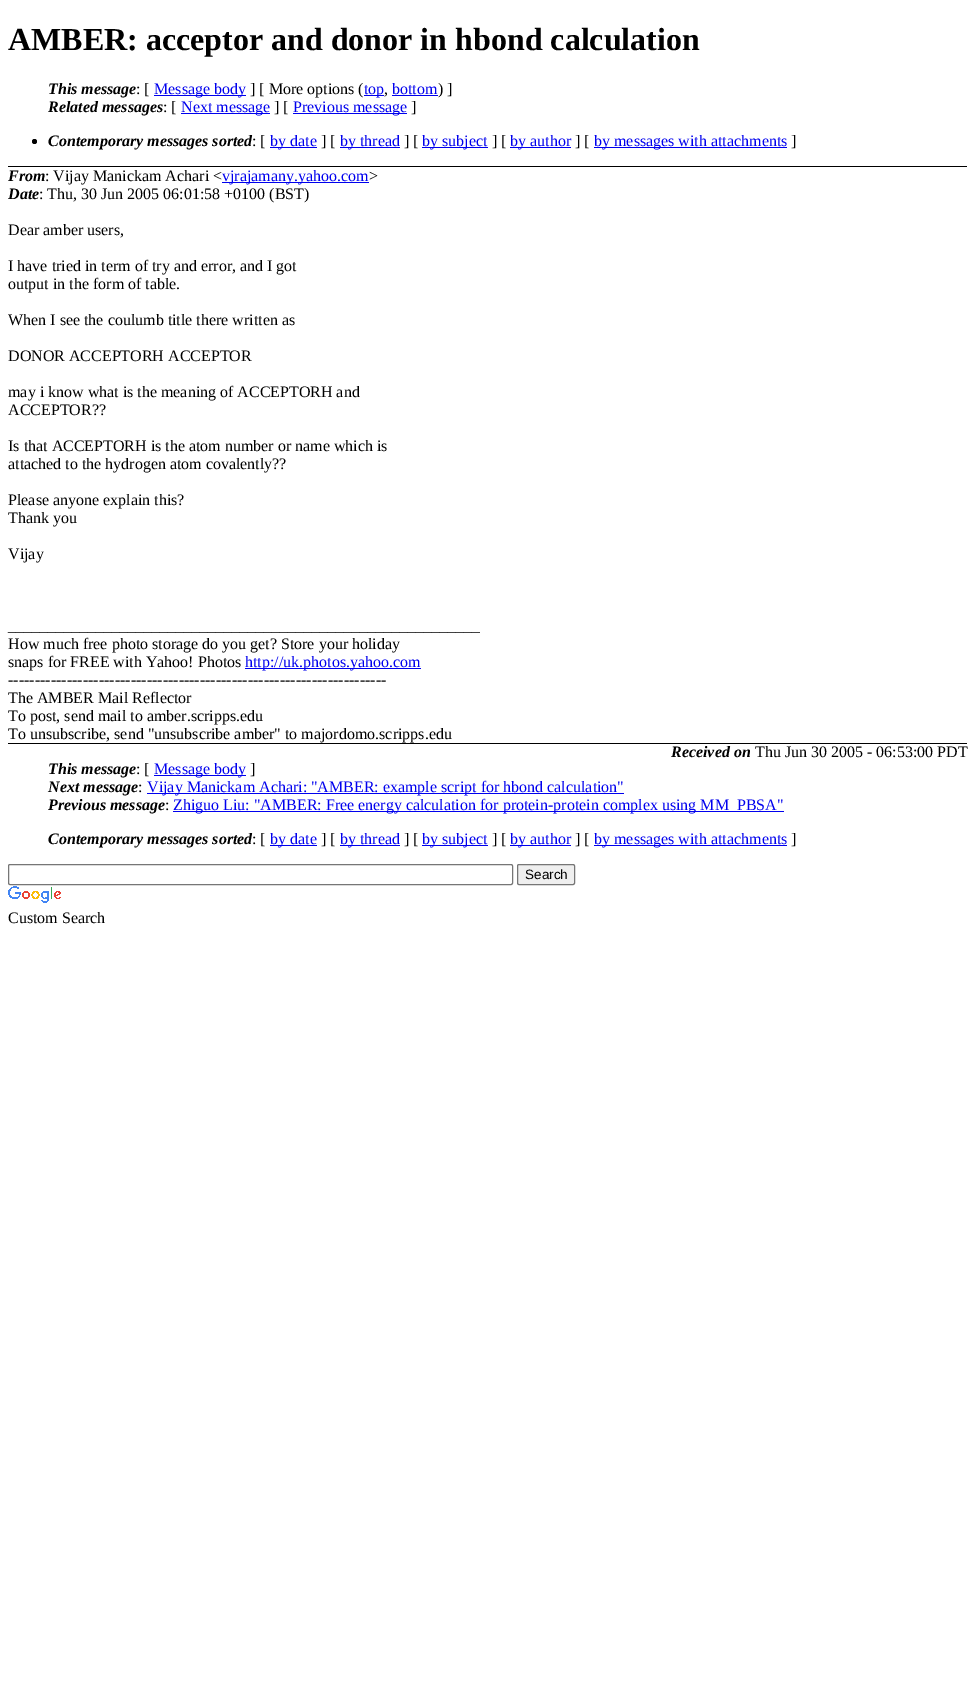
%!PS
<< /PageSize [975 1708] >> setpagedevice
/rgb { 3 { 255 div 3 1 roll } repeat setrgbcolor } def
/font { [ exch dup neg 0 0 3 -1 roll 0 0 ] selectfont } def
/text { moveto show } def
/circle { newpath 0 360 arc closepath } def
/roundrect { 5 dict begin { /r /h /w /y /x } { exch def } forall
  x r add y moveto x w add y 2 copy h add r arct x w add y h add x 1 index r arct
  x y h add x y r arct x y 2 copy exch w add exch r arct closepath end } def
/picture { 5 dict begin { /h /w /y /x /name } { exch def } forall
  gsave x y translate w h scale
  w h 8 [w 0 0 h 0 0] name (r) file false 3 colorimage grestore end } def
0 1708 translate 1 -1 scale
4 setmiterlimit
255 255 255 rgb
0 0 975 1708 rectfill
0 0 0 rgb
8 166 959 1 rectfill
0 0 238 rgb
154 95 92 1 rectfill
364 95 20 1 rectfill
392 95 46 1 rectfill
181 113 89 1 rectfill
293 113 114 1 rectfill
0 0 0 rgb
34.5 141.5 2.5 circle fill
0 0 238 rgb
270 147 47 1 rectfill
340 147 60 1 rectfill
422 147 66 1 rectfill
510 147 61 1 rectfill
594 147 193 1 rectfill
222 182 147 1 rectfill
245 668 176 1 rectfill
0 0 0 rgb
8 743 959 1 rectfill
0 0 238 rgb
154 775 92 1 rectfill
147 793 477 1 rectfill
173 811 611 1 rectfill
270 845 47 1 rectfill
340 845 60 1 rectfill
422 845 66 1 rectfill
510 845 61 1 rectfill
594 845 193 1 rectfill
118 118 118 rgb
8.5 864.5 504 20 1.5 roundrect stroke
239 239 239 rgb
517.5 864.5 57 20 1.5 roundrect gsave fill grestore
118 118 118 rgb
stroke
(img_01.rgb) 8 886 53 17 picture
/LiberationSerif-Bold 32 font
0 0 0 rgb
(AMBER: acceptor and donor in hbond calculation) 8 50 text
/LiberationSerif-BoldItalic 16 font
(This message) 48 94 text
/LiberationSerif-Regular 16 font
(: [) 136 94 text
0 0 238 rgb
(Message body) 154 94 text
0 0 0 rgb
(] [ More options \() 250 94 text
0 0 238 rgb
(top) 364 94 text
0 0 0 rgb
(,) 384 94 text
0 0 238 rgb
(bottom) 392 94 text
0 0 0 rgb
(\) ]) 438 94 text
/LiberationSerif-BoldItalic 16 font
(Related messages) 48 112 text
/LiberationSerif-Regular 16 font
(: [) 163 112 text
0 0 238 rgb
(Next message) 181 112 text
0 0 0 rgb
(] [) 274 112 text
0 0 238 rgb
(Previous message) 293 112 text
0 0 0 rgb
(]) 411 112 text
/LiberationSerif-BoldItalic 16 font
(Contemporary messages sorted) 48 146 text
/LiberationSerif-Regular 16 font
(: [) 252 146 text
0 0 238 rgb
(by date) 270 146 text
0 0 0 rgb
(] [) 321 146 text
0 0 238 rgb
(by thread) 340 146 text
0 0 0 rgb
(] [) 404 146 text
0 0 238 rgb
(by subject) 422 146 text
0 0 0 rgb
(] [) 492 146 text
0 0 238 rgb
(by author) 510 146 text
0 0 0 rgb
(] [) 575 146 text
0 0 238 rgb
(by messages with attachments) 594 146 text
0 0 0 rgb
(]) 791 146 text
/LiberationSerif-BoldItalic 16 font
(From) 8 181 text
/LiberationSerif-Regular 16 font
(: Vijay Manickam Achari <) 45 181 text
0 0 238 rgb
(vjrajamany.yahoo.com) 222 181 text
0 0 0 rgb
(>) 369 181 text
/LiberationSerif-BoldItalic 16 font
(Date) 8 199 text
/LiberationSerif-Regular 16 font
(: Thu, 30 Jun 2005 06:01:58 +0100 \(BST\)) 39 199 text
(Dear amber users,) 8 235 text
(I have tried in term of try and error, and I got) 8 271 text
(output in the form of table.) 8 289 text
(When I see the coulumb title there written as) 8 325 text
(DONOR ACCEPTORH ACCEPTOR) 8 361 text
(may i know what is the meaning of ACCEPTORH and) 8 397 text
(ACCEPTOR??) 8 415 text
(Is that ACCEPTORH is the atom number or name which is) 8 451 text
(attached to the hydrogen atom covalently??) 8 469 text
(Please anyone explain this?) 8 505 text
(Thank you) 8 523 text
(Vijay) 8 559 text
(___________________________________________________________) 8 631 text
(How much free photo storage do you get? Store your holiday) 8 649 text
(snaps for FREE with Yahoo! Photos) 8 667 text
0 0 238 rgb
(http://uk.photos.yahoo.com) 245 667 text
0 0 0 rgb
(-----------------------------------------------------------------------) 8 685 text
(The AMBER Mail Reflector) 8 703 text
(To post, send mail to amber.scripps.edu) 8 721 text
(To unsubscribe, send "unsubscribe amber" to majordomo.scripps.edu) 8 739 text
/LiberationSerif-BoldItalic 16 font
(Received on) 671 757 text
/LiberationSerif-Regular 16 font
(Thu Jun 30 2005 - 06:53:00 PDT) 755 757 text
/LiberationSerif-BoldItalic 16 font
(This message) 48 774 text
/LiberationSerif-Regular 16 font
(: [) 136 774 text
0 0 238 rgb
(Message body) 154 774 text
0 0 0 rgb
(]) 250 774 text
/LiberationSerif-BoldItalic 16 font
(Next message) 48 792 text
/LiberationSerif-Regular 16 font
(:) 138 792 text
0 0 238 rgb
(Vijay Manickam Achari: "AMBER: example script for hbond calculation") 147 792 text
/LiberationSerif-BoldItalic 16 font
0 0 0 rgb
(Previous message) 48 810 text
/LiberationSerif-Regular 16 font
(:) 165 810 text
0 0 238 rgb
(Zhiguo Liu: "AMBER: Free energy calculation for protein-protein complex using MM_PBSA") 173 810 text
/LiberationSerif-BoldItalic 16 font
0 0 0 rgb
(Contemporary messages sorted) 48 844 text
/LiberationSerif-Regular 16 font
(: [) 252 844 text
0 0 238 rgb
(by date) 270 844 text
0 0 0 rgb
(] [) 321 844 text
0 0 238 rgb
(by thread) 340 844 text
0 0 0 rgb
(] [) 404 844 text
0 0 238 rgb
(by subject) 422 844 text
0 0 0 rgb
(] [) 492 844 text
0 0 238 rgb
(by author) 510 844 text
0 0 0 rgb
(] [) 575 844 text
0 0 238 rgb
(by messages with attachments) 594 844 text
0 0 0 rgb
(]) 791 844 text
/LiberationSans-Regular 13.5 font
(Search) 525 879 text
/LiberationSerif-Regular 16 font
(Custom Search) 8 923 text
showpage
